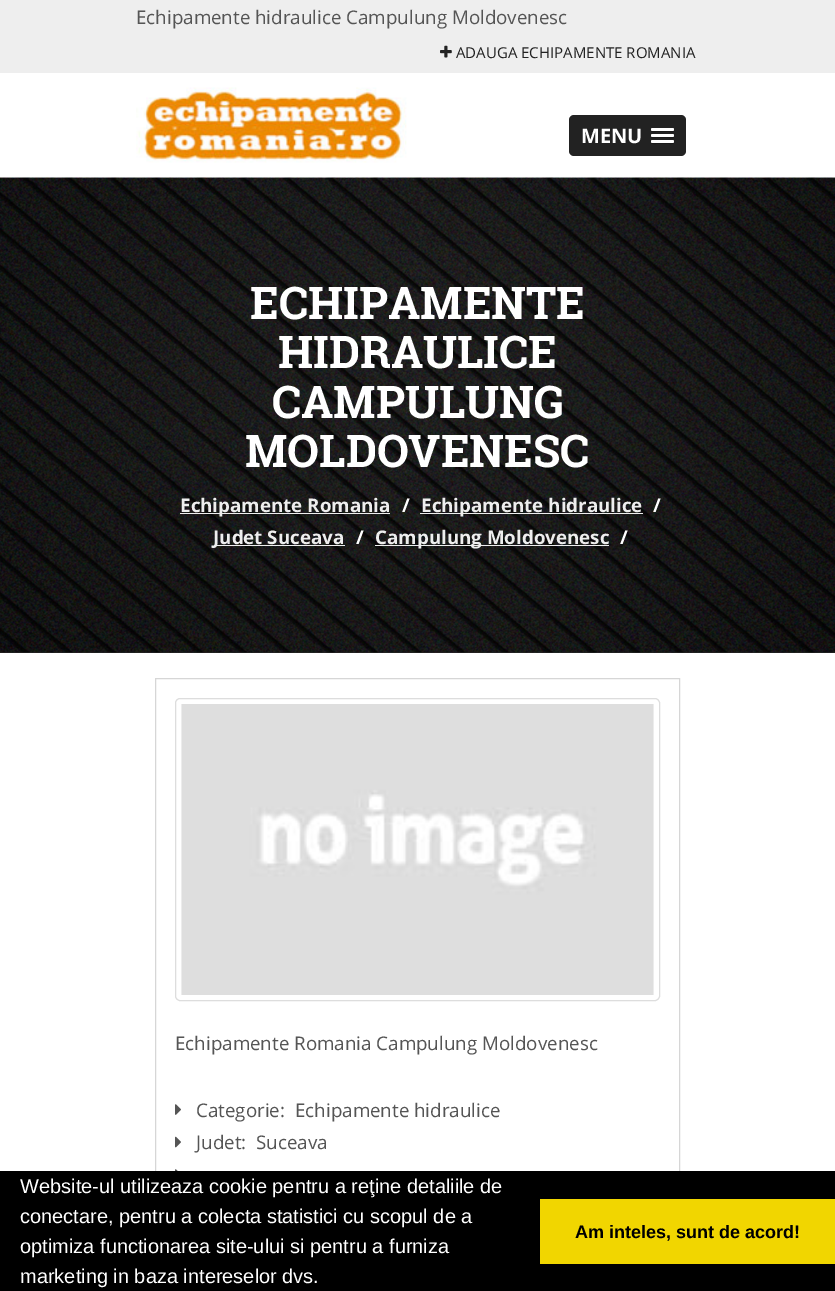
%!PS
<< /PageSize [835 1291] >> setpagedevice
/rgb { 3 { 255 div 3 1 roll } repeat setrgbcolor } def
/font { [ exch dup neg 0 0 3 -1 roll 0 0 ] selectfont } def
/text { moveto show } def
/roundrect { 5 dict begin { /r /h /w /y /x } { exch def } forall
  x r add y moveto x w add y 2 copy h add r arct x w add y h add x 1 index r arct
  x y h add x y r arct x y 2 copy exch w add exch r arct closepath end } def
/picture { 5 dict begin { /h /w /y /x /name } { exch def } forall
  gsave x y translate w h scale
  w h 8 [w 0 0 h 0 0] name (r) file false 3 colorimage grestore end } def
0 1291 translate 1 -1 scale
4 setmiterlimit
255 255 255 rgb
0 0 835 1291 rectfill
238 238 238 rgb
0 0 835 73 rectfill
(img_01.rgb) 440 45 12 13 picture
(img_02.rgb) 136 87 271 76 picture
34 34 34 rgb
569 115 117 41 5 roundrect fill
26 26 26 rgb
651.5 129.5 moveto -0.5 1.5 rlineto 0.5 2 4 1 5 1 rcurveto 13 0 rlineto 1 0 4.5 1 5 -1 rcurveto -0.5 -1.5 rlineto -1 0.5 rlineto -20 0 rlineto closepath fill
255 255 255 rgb
651 128 23 3 1.5 roundrect fill
26 26 26 rgb
651.5 135.5 moveto -0.5 1.5 rlineto 0.5 2 4 1 5 1 rcurveto 13 0 rlineto 1 0 4.5 1 5 -1 rcurveto -0.5 -1.5 rlineto 0 0.5 -0.5 0.5 -1 0.5 rcurveto -20 0 rlineto -0.5 0 -1 0 -1 -0.5 rcurveto closepath fill
255 255 255 rgb
651 134 23 3 1.5 roundrect fill
26 26 26 rgb
651.5 141.5 moveto -2.5 3 4 2.5 4.5 2.5 rcurveto 13 0 rlineto 0.5 0 7 0.5 4.5 -2.5 rcurveto 0 0.5 -0.5 1 -1 1 rcurveto -20 0 rlineto -0.5 0 -1 -0.5 -1 -1 rcurveto closepath fill
255 255 255 rgb
651 140 23 3 1.5 roundrect fill
43 43 43 rgb
0 652 835 1 rectfill
(img_03.rgb) 0 177 835 476 picture
238 238 238 rgb
180 513 210 1 rectfill
420 513 223 1 rectfill
214 545 131 1 rectfill
375 545 234 1 rectfill
214 214 214 rgb
155.5 678.5 524 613 rectstroke
221 221 221 rgb
175.5 698.5 484 302 4.5 roundrect stroke
(img_04.rgb) 181 704 473 291 picture
(img_05.rgb) 175 1104 6 11 picture
(img_06.rgb) 175 1136 6 12 picture
(img_07.rgb) 175 1169 3 2 picture
0 0 0 rgb
0 1171 835 120 rectfill
241 214 0 rgb
540 1199 295 65 rectfill
/OpenSans-Regular 18.75 font
85 85 85 rgb
(Echipamente hidraulice Campulung Moldovenesc) 136 24 text
/OpenSans-Regular 15 font
34 34 34 rgb
(ADAUGA ECHIPAMENTE ROMANIA) 456 58 text
/OpenSans-Bold 20 font
255 255 255 rgb
(MENU) 581 143 text
/RobotoSlab-Bold 45 font
(ECHIPAMENTE) 250 319 text
(HIDRAULICE) 278 368 text
(CAMPULUNG) 272 418 text
(MOLDOVENESC) 245 467 text
/OpenSans-Bold 18.75 font
238 238 238 rgb
(Echipamente Romania) 180 512 text
255 255 255 rgb
(/) 402 512 text
238 238 238 rgb
(Echipamente hidraulice) 421 512 text
255 255 255 rgb
(/) 653 512 text
238 238 238 rgb
(Judet Suceava) 213 544 text
255 255 255 rgb
(/) 356 544 text
238 238 238 rgb
(Campulung Moldovenesc) 375 544 text
255 255 255 rgb
(/) 620 544 text
/OpenSans-Regular 18.75 font
85 85 85 rgb
(Echipamente Romania Campulung Moldovenesc) 175 1050 text
(Categorie:) 196 1117 text
(Echipamente hidraulice) 295 1117 text
(Judet:) 196 1149 text
(Suceava) 256 1149 text
/LiberationSans-Regular 20 font
255 255 255 rgb
(Website-ul utilizeaza cookie pentru a reţine detaliile de) 20 1193 text
(conectare, pentru a colecta statistici cu scopul de a) 20 1223 text
(optimiza functionarea site-ului si pentru a furniza) 20 1253 text
(marketing in baza intereselor dvs.) 20 1283 text
/LiberationSans-Bold 18 font
0 0 0 rgb
(Am inteles, sunt de acord!) 575 1238 text
showpage
